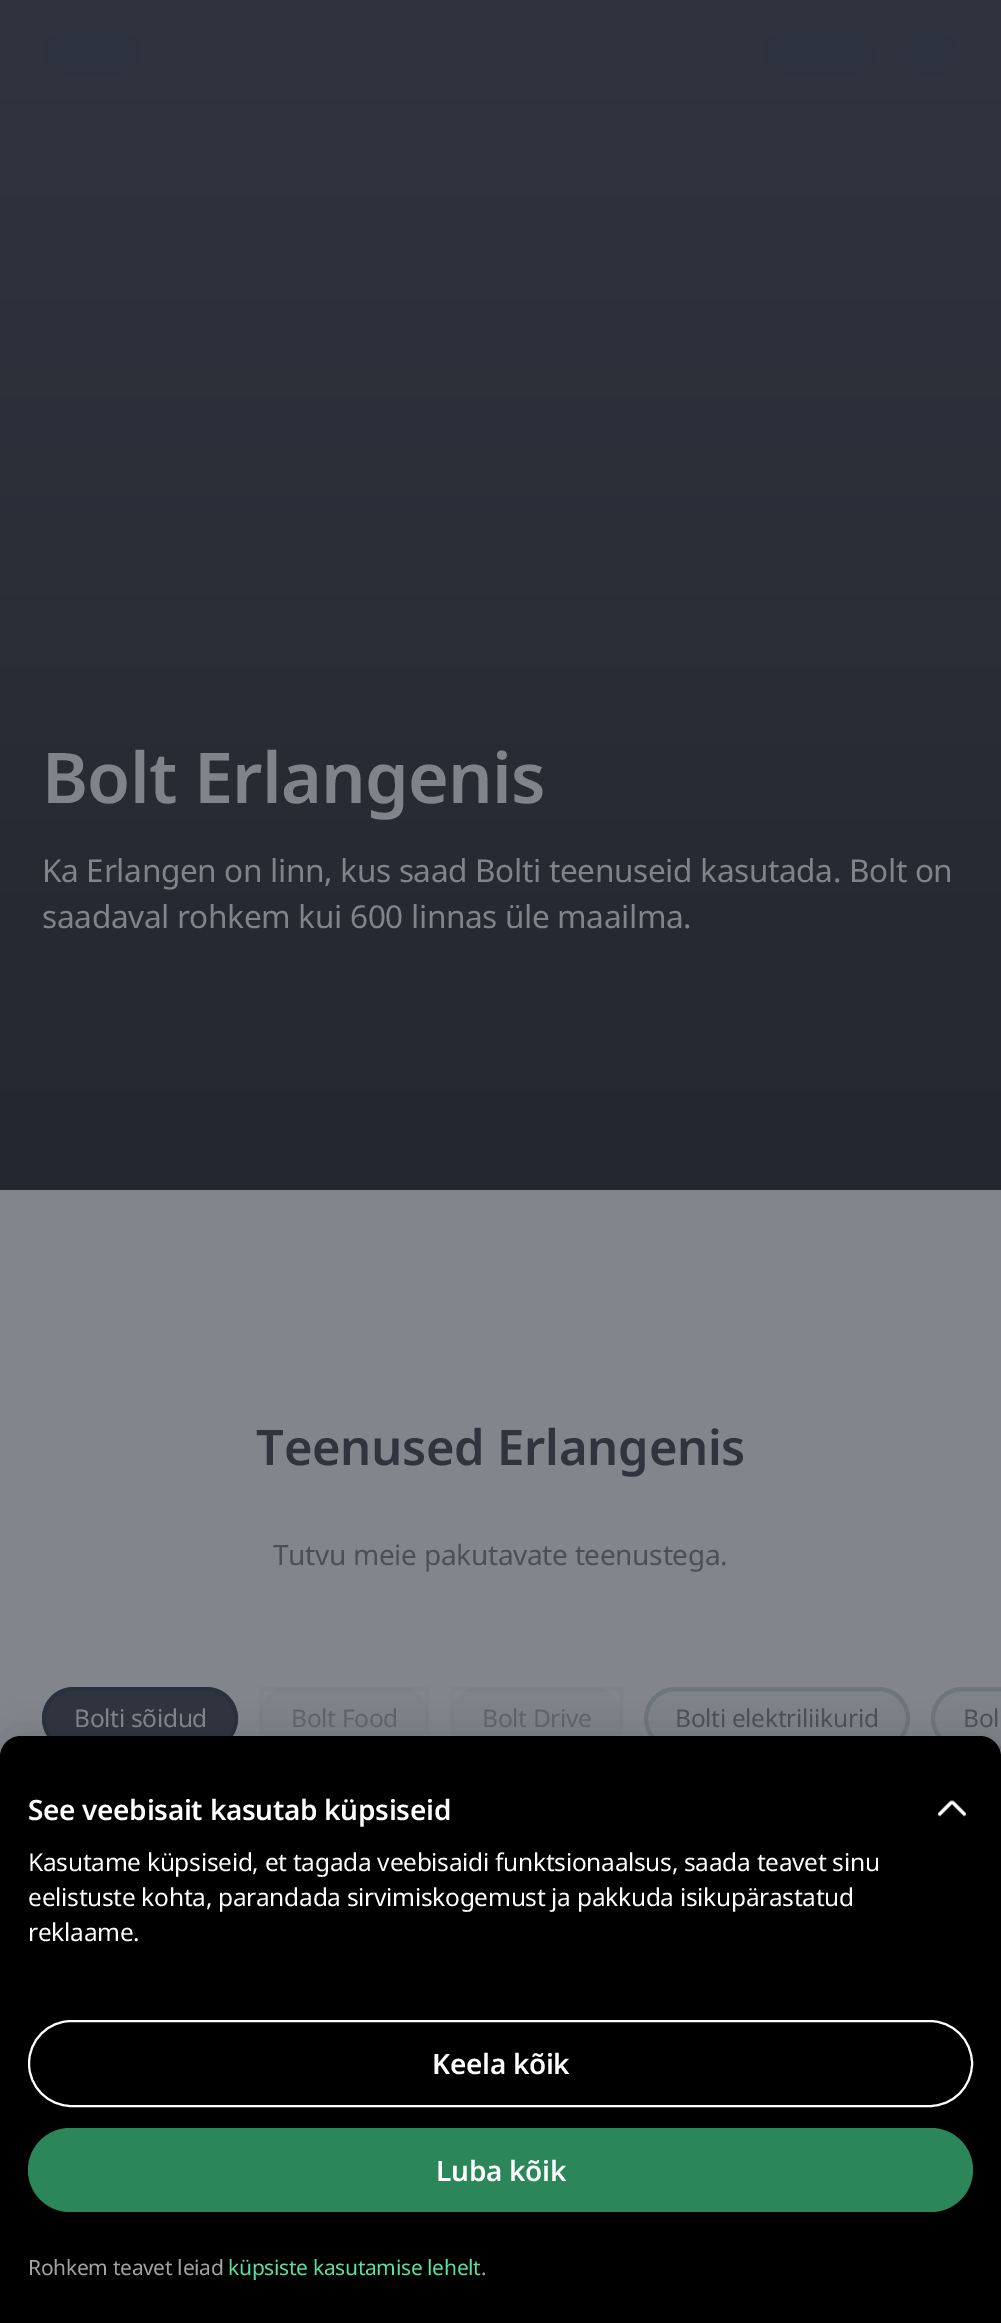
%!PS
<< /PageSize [1001 2323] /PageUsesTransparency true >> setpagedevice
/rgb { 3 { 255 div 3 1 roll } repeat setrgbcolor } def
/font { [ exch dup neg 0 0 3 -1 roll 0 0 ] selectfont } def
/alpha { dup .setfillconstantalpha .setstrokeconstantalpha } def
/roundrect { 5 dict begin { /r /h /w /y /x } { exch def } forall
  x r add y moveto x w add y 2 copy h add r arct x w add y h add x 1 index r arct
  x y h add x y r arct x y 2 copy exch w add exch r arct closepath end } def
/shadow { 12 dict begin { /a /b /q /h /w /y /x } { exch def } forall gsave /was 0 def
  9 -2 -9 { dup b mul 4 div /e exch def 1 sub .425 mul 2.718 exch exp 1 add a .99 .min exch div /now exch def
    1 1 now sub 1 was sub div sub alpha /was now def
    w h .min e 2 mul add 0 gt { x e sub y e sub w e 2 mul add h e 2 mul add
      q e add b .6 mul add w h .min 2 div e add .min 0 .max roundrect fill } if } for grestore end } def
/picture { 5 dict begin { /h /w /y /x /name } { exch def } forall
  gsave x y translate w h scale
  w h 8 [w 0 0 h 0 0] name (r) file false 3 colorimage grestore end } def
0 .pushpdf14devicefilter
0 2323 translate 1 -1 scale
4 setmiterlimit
130 134 140 rgb
0 0 1001 2323 rectfill
gsave 0 0 moveto 1001 0 rlineto 0 1190 rlineto -1001 0 rlineto closepath clip newpath
<< /ShadingType 2 /ColorSpace /DeviceRGB /Coords [501 1190 501 0] /Extend [true true] /Function << /FunctionType 2 /Domain [0 1] /C0 [0.137 0.153 0.184] /C1 [0.184 0.204 0.247] /N 1 >> >> shfill grestore
44 50 62 rgb
42 32 98 42 21 roundrect fill
763 32 112 42 21 roundrect fill
903 32 56 42 21 roundrect fill
47 52 63 rgb
42 1687 196 63 31.5 roundrect fill
0.36 alpha
31 43 60 rgb
4 setlinewidth
44 1689 192 59 29.5 roundrect stroke
1 alpha
126 131 137 rgb
259 1687 170 63 31.5 roundrect fill
0.04 alpha
31 43 60 rgb
261 1689 166 59 rectstroke
1 alpha
126 131 137 rgb
450 1687 173 63 31.5 roundrect fill
0.04 alpha
31 43 60 rgb
452 1689 169 59 rectstroke
1 alpha
126 131 137 rgb
644 1687 266 63 31.5 roundrect fill
0.16 alpha
31 43 60 rgb
646 1689 262 59 29.5 roundrect stroke
1 alpha
126 131 137 rgb
962.5 1687 moveto 38.5 0 rlineto 0 63 rlineto -38.5 0 rlineto -17.5 0 -31.5 -14 -31.5 -31.5 rcurveto 0 -17.5 14 -31.5 31.5 -31.5 rcurveto closepath fill
0.16 alpha
31 43 60 rgb
933 1689 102 59 29.5 roundrect stroke
1 alpha
0 0 0 rgb
0 1747 1001 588 21 21 0.24 shadow
21 1736 moveto 959 0 rlineto 11.5 0 21 9.5 21 21 rcurveto 0 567 rlineto -1001 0 rlineto 0 -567 rlineto 0 -11.5 9.5 -21 21 -21 rcurveto closepath fill
(img_01.rgb) 938 1800 28 17 picture
255 255 255 rgb
2 setlinewidth
29 2021 943 85 42.5 roundrect stroke
43 134 89 rgb
28 2128 945 84 42 roundrect fill
/NotoSans-SemiBold 70 font
128 132 138 rgb
42 803 moveto -0.75 0 (Bolt Erlangenis) ashow
/NotoSans-Regular 31.5 font
42 882 moveto -0.3 0 (Ka Erlangen on linn, kus saad Bolti teenuseid kasutada. Bolt on) ashow
42 928 moveto -0.3 0 (saadaval rohkem kui 600 linnas üle maailma.) ashow
/NotoSans-SemiBold 49 font
47 52 63 rgb
256 1465 moveto -0.3 0 (Teenused Erlangenis) ashow
/NotoSans-Regular 28 font
73 80 89 rgb
273 1565 moveto -0.3 0 (Tutvu meie pakutavate teenustega.) ashow
/NotoSans-Regular 24.5 font
128 132 138 rgb
74 1727 moveto -0.3 0 (Bolti sõidud) ashow
92 99 109 rgb
291 1727 moveto -0.3 0 (Bolt Food) ashow
482 1727 moveto -0.3 0 (Bolt Drive) ashow
73 80 89 rgb
675 1727 moveto -0.3 0 (Bolti elektriliikurid) ashow
963 1727 moveto -0.3 0 (Bol) ashow
/NotoSans-SemiBold 28 font
255 255 255 rgb
28 1820 moveto -0.3 0 (See veebisait kasutab küpsiseid) ashow
/NotoSans-Regular 24.5 font
28 1871 moveto -0.3 0 (Kasutame küpsiseid, et tagada veebisaidi funktsionaalsus, saada teavet sinu) ashow
28 1906 moveto -0.3 0 (eelistuste kohta, parandada sirvimiskogemust ja pakkuda isikupärastatud) ashow
28 1941 moveto -0.3 0 (reklaame.) ashow
/NotoSans-SemiBold 28 font
432 2074 moveto -0.3 0 (Keela kõik) ashow
436 2181 moveto -0.3 0 (Luba kõik) ashow
/NotoSans-Regular 21 font
163 163 163 rgb
28 2275 moveto -0.3 0 (Rohkem teavet leiad) ashow
90 225 160 rgb
228 2275 moveto -0.3 0 (küpsiste kasutamise lehelt) ashow
163 163 163 rgb
481 2275 moveto -0.3 0 (.) ashow
.poppdf14devicefilter showpage
